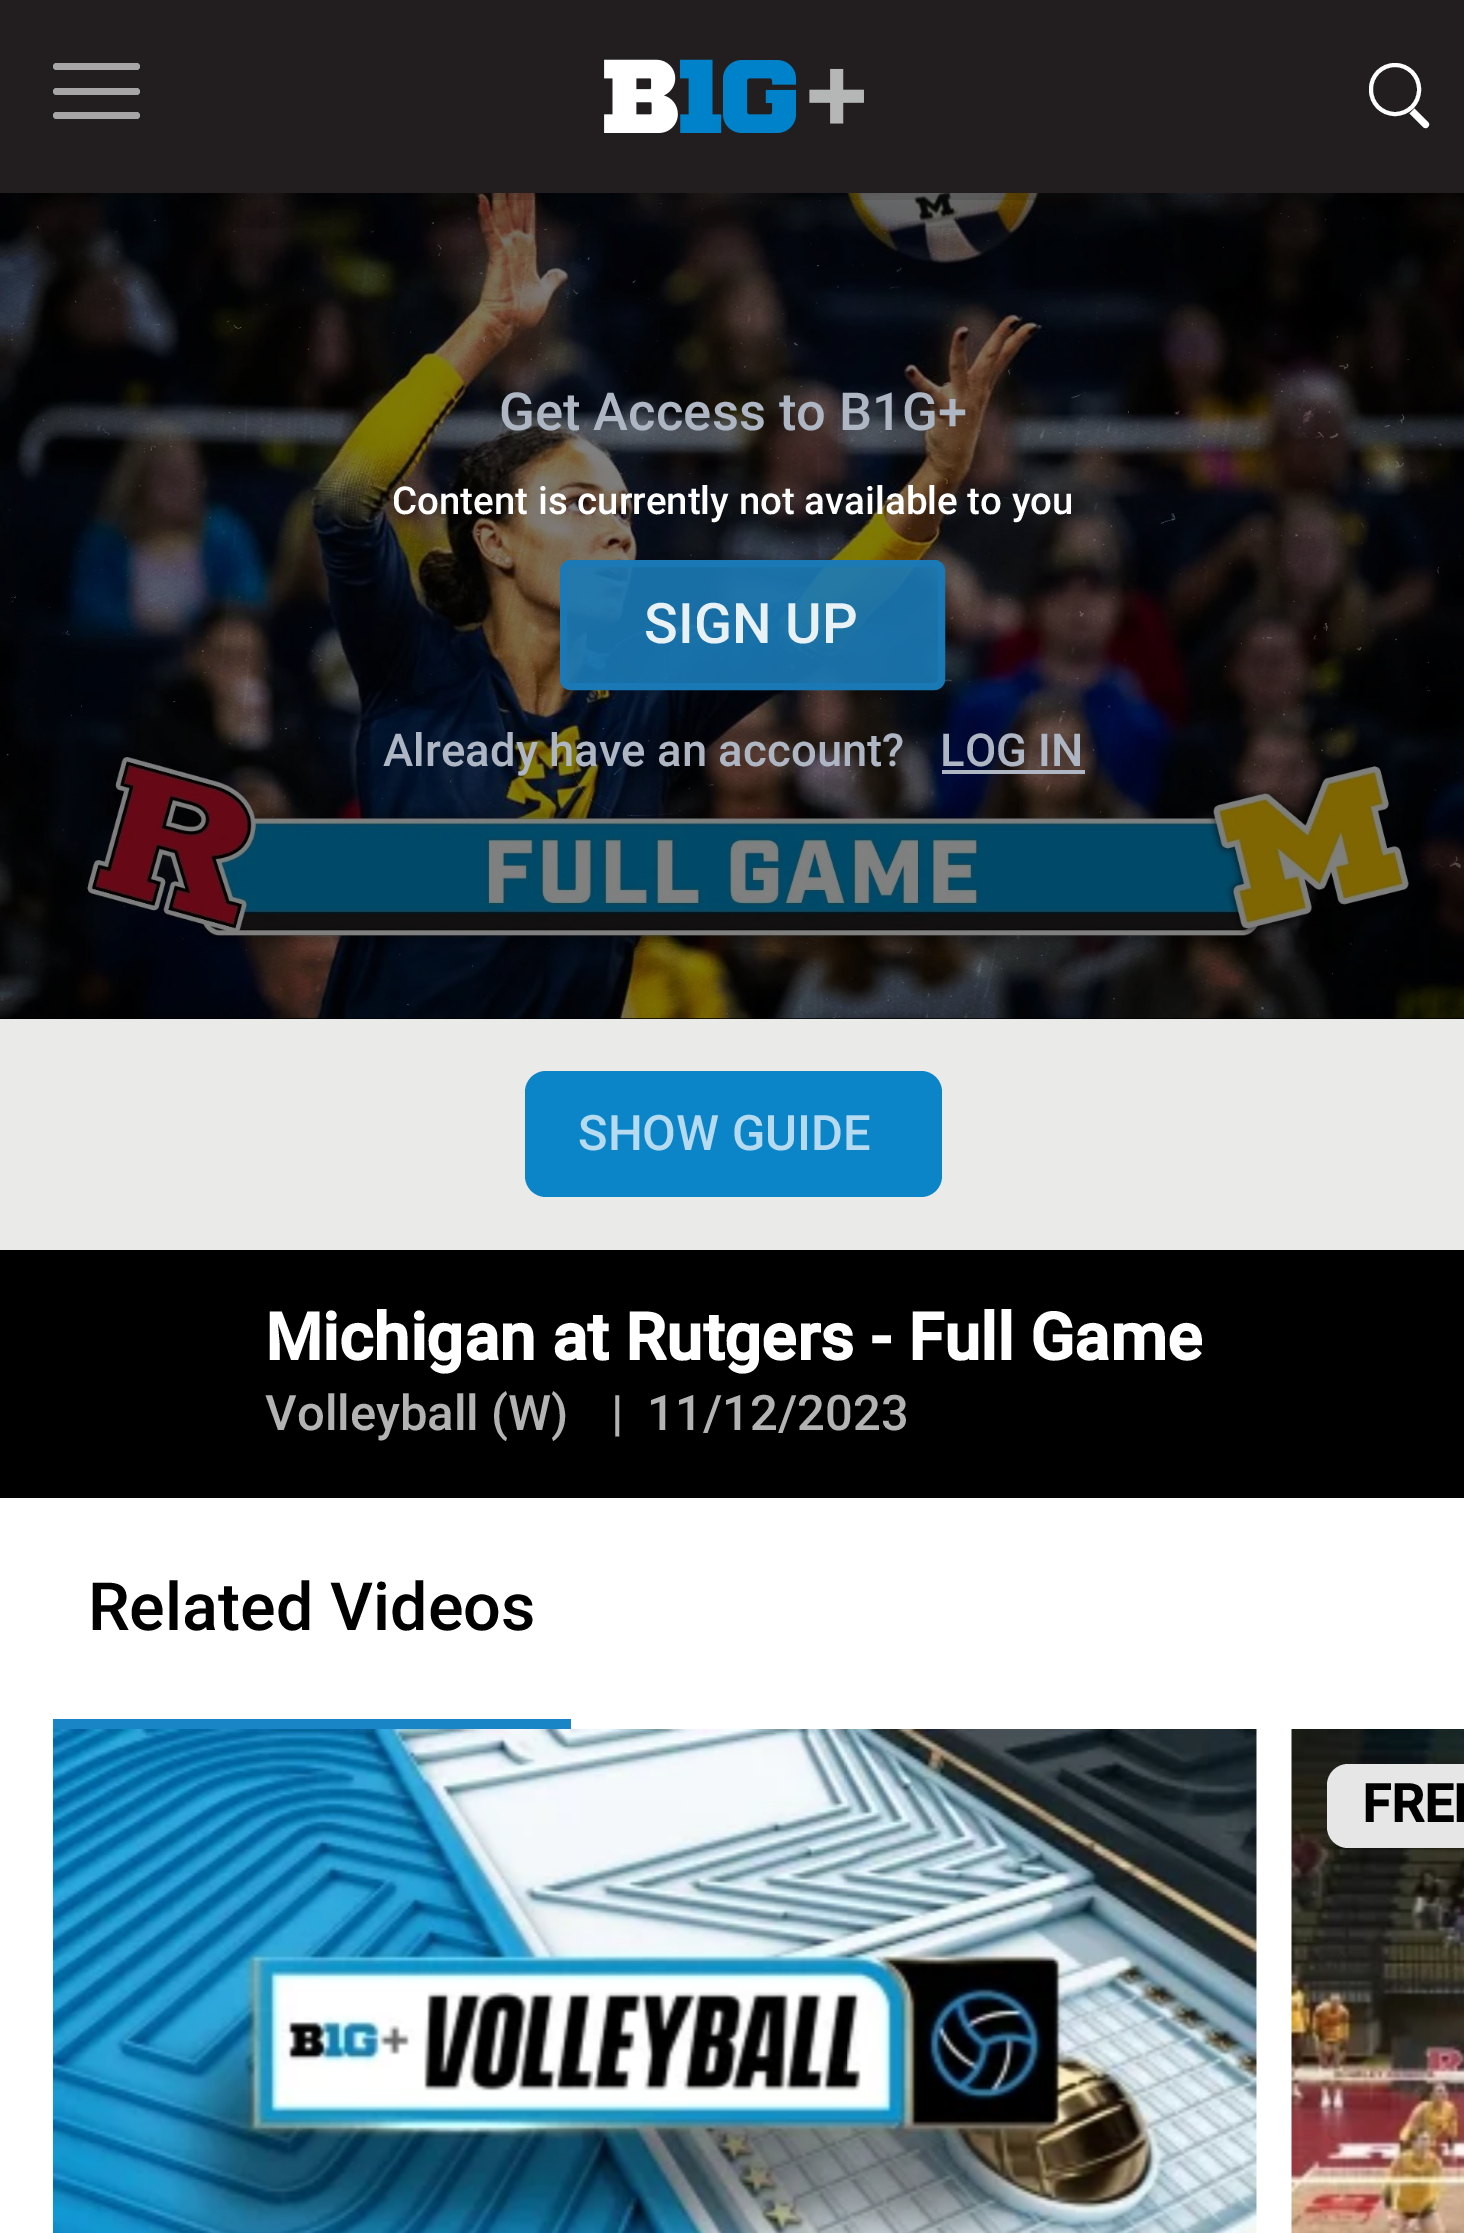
%!PS
<< /PageSize [1464 2233] /PageUsesTransparency true >> setpagedevice
/rgb { 3 { 255 div 3 1 roll } repeat setrgbcolor } def
/font { [ exch dup neg 0 0 3 -1 roll 0 0 ] selectfont } def
/text { moveto show } def
/alpha { dup .setfillconstantalpha .setstrokeconstantalpha } def
/roundrect { 5 dict begin { /r /h /w /y /x } { exch def } forall
  x r add y moveto x w add y 2 copy h add r arct x w add y h add x 1 index r arct
  x y h add x y r arct x y 2 copy exch w add exch r arct closepath end } def
/shadow { 12 dict begin { /a /b /q /h /w /y /x } { exch def } forall gsave /was 0 def
  9 -2 -9 { dup b mul 4 div /e exch def 1 sub .425 mul 2.718 exch exp 1 add a .99 .min exch div /now exch def
    1 1 now sub 1 was sub div sub alpha /was now def
    w h .min e 2 mul add 0 gt { x e sub y e sub w e 2 mul add h e 2 mul add
      q e add b .6 mul add w h .min 2 div e add .min 0 .max roundrect fill } if } for grestore end } def
/picture { 5 dict begin { /h /w /y /x /name } { exch def } forall
  gsave x y translate w h scale
  w h 8 [w 0 0 h 0 0] name (r) file false 3 colorimage grestore end } def
0 .pushpdf14devicefilter
0 2233 translate 1 -1 scale
4 setmiterlimit
0 0 0 rgb
0 0 1464 2233 rectfill
(img_02.rgb) 0 193 1464 826 picture
77 77 1383 109 0 56 0.26 shadow
77 77 1383 109 0 56 0.26 shadow
34 30 31 rgb
0 0 1464 193 rectfill
167 165 165 rgb
53 63 87 7 3.5 roundrect fill
53 88 87 7 3.5 roundrect fill
53 112 87 7 3.5 roundrect fill
(img_01.rgb) 604 59 260 74 picture
255 255 255 rgb
4 setlinewidth
1371 65 48 49 24 roundrect stroke
1414.5 108.5 moveto 13.5 13.5 rlineto 1.5 1.5 1.5 3.5 0 5 rcurveto -1 1.5 -3.5 1.5 -5 0 rcurveto -13.5 -13.5 rlineto closepath fill
0.9 alpha
26 122 182 rgb
560 560 385 130 11 roundrect fill
7 setlinewidth
563.5 563.5 378 123 7.5 roundrect stroke
1 alpha
173 182 194 rgb
942 770 143 4 rectfill
234 234 233 rgb
0 1019 1464 231 rectfill
11 133 200 rgb
525 1071 417 126 21 roundrect fill
255 255 255 rgb
0 1498 1464 735 rectfill
25 133 199 rgb
53 1719 518 10 rectfill
(img_03.rgb) 53 1729 1204 504 picture
(img_04.rgb) 1291 1729 173 504 picture
230 230 230 rgb
1348 1764 moveto 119 0 rlineto 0 84 rlineto -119 0 rlineto -11.5 0 -21 -9.5 -21 -21 rcurveto 0 -42 rlineto 0 -11.5 9.5 -21 21 -21 rcurveto closepath fill
/Roboto-Medium 52.5 font
173 182 194 rgb
(Get Access to B1G+) 499 430 text
/Roboto-Medium 38.5 font
255 255 255 rgb
(Content is currently not available to you) 392 514 text
/Roboto-Medium 56 font
232 241 246 rgb
(SIGN UP) 644 643 text
/Roboto-Medium 45.5 font
173 182 194 rgb
(Already have an account?) 383 766 text
(LOG IN) 940 766 text
/Roboto-Medium 49 font
182 218 239 rgb
(SHOW GUIDE) 578 1150 text
/Roboto-Bold 65.5 font
255 255 255 rgb
(Michigan at Rutgers - Full Game) 265 1360 text
/Roboto-Medium 49 font
179 179 179 rgb
(Volleyball \(W\)) 265 1430 text
(|) 611 1430 text
(11/12/2023) 647 1430 text
/Roboto-Medium 66.5 font
0 0 0 rgb
(Related Videos) 88 1630 text
/Roboto-Bold 52.5 font
(FREE) 1362 1822 text
.poppdf14devicefilter showpage
